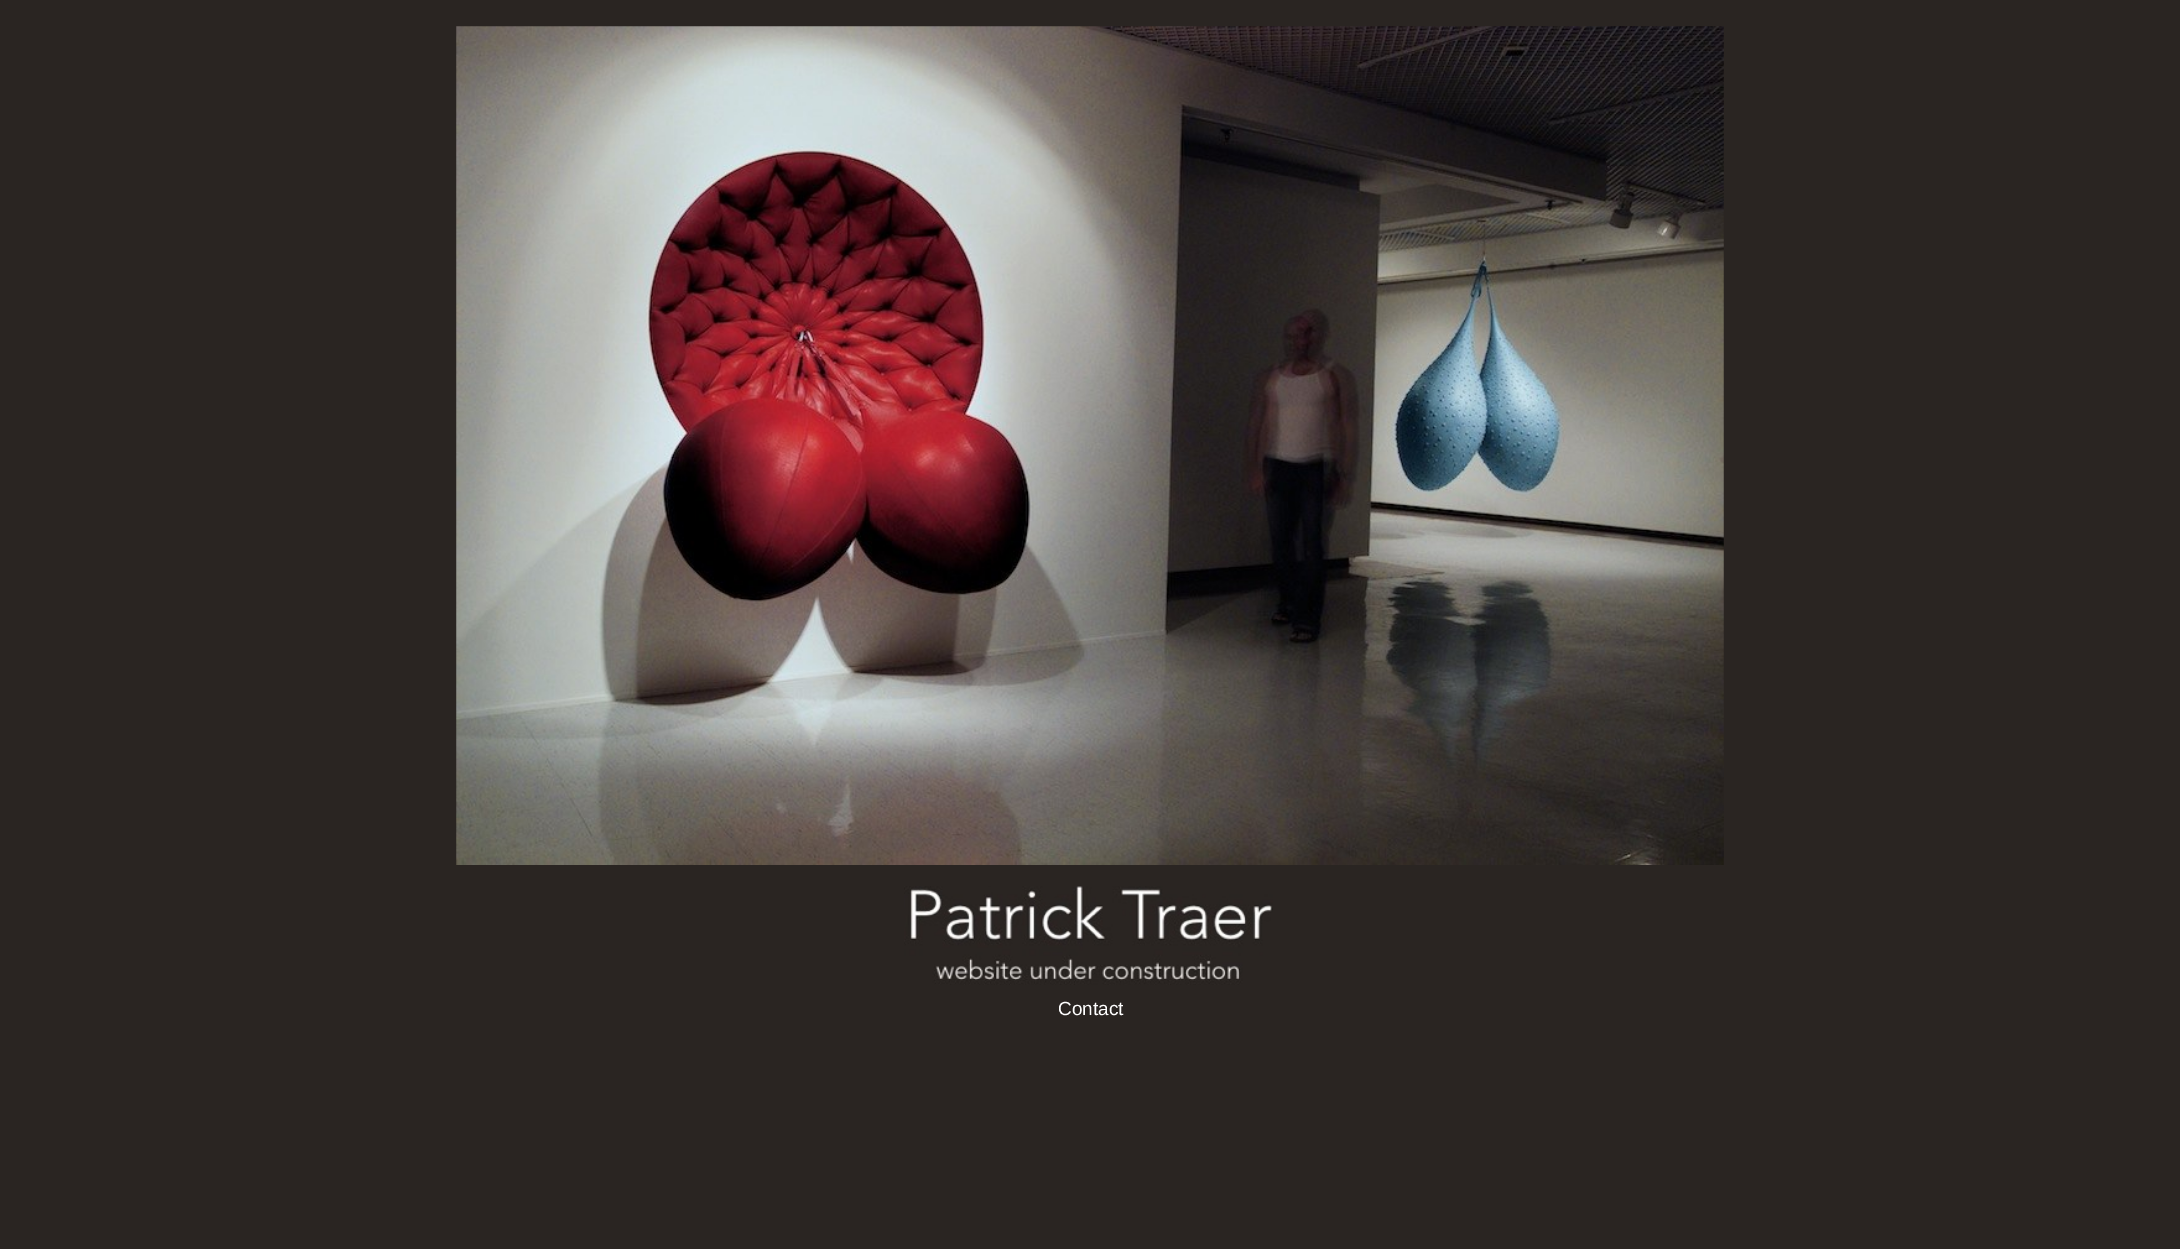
%!PS
<< /PageSize [2180 1249] >> setpagedevice
/rgb { 3 { 255 div 3 1 roll } repeat setrgbcolor } def
/font { [ exch dup neg 0 0 3 -1 roll 0 0 ] selectfont } def
/text { moveto show } def
/picture { 5 dict begin { /h /w /y /x /name } { exch def } forall
  gsave x y translate w h scale
  w h 8 [w 0 0 h 0 0] name (r) file false 3 colorimage grestore end } def
0 1249 translate 1 -1 scale
4 setmiterlimit
42 37 34 rgb
0 0 2180 1249 rectfill
(img_01.rgb) 456 26 1268 839 picture
(img_02.rgb) 904 886 369 99 picture
/LiberationSans-Regular 19 font
255 255 255 rgb
(Contact) 1058 1015 text
showpage
